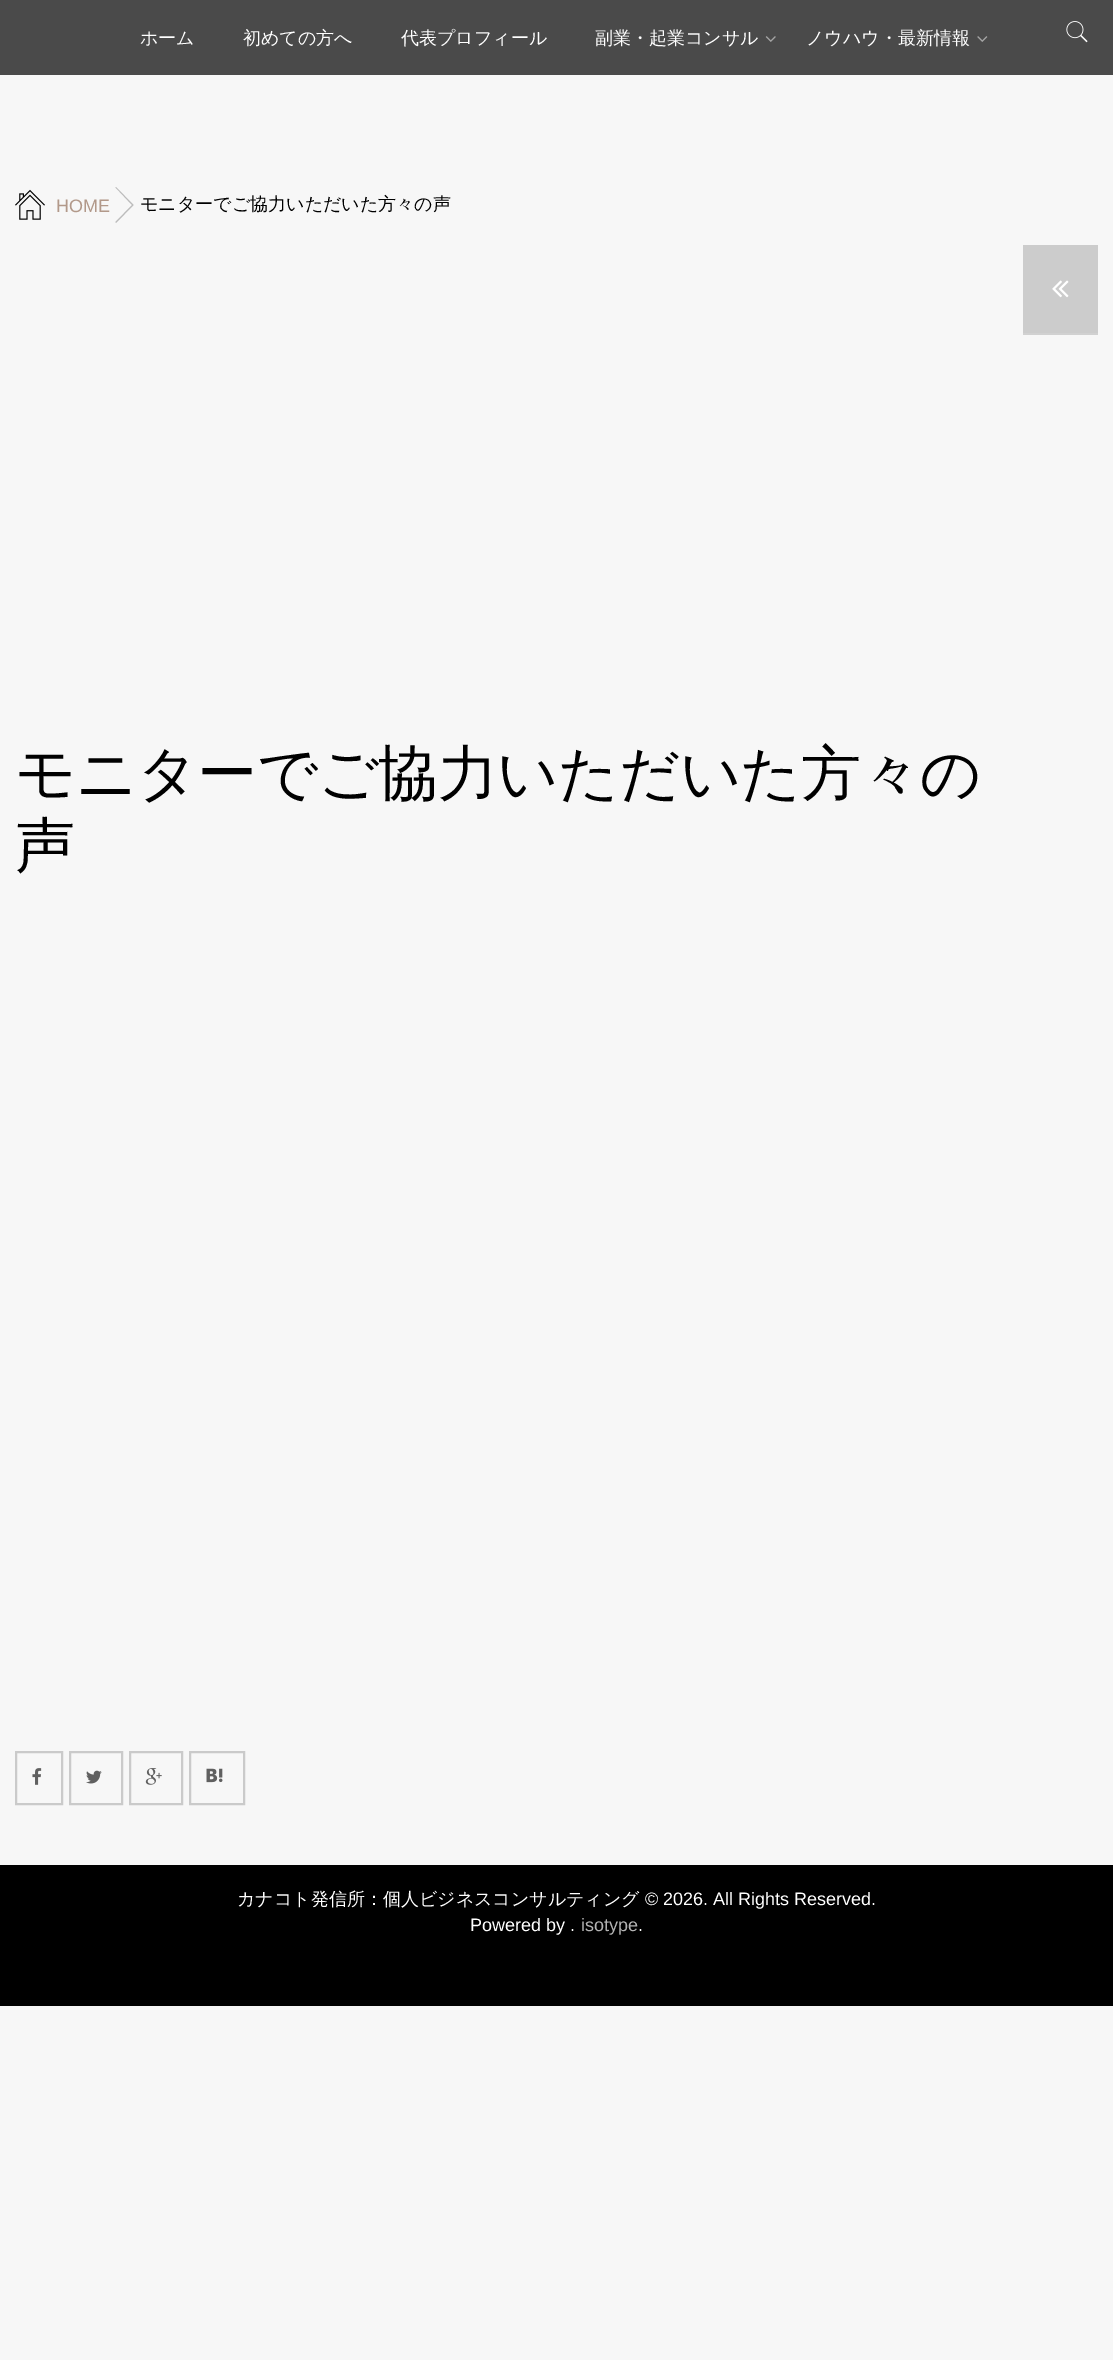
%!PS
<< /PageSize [1113 2360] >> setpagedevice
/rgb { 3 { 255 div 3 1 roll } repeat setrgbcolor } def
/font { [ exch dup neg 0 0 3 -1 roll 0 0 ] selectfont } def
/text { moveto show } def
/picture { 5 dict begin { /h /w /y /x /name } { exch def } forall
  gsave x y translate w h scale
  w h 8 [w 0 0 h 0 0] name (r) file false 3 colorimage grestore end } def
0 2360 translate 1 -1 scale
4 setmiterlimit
247 247 247 rgb
0 0 1113 2360 rectfill
74 74 74 rgb
0 0 1113 75 rectfill
(img_01.rgb) 765 36 11 6 picture
(img_02.rgb) 977 36 11 6 picture
(img_03.rgb) 1066 21 22 22 picture
(img_04.rgb) 15 189 30 31 picture
188 188 188 rgb
115.5 187.5 moveto 16.5 17.5 rlineto -16.5 17 rlineto 0.5 1 rlineto 17.5 -18 rlineto -17.5 -18 rlineto closepath fill
204 204 204 rgb
1023 245 75 88 rectfill
209 209 209 rgb
1023 333 75 2 rectfill
(img_05.rgb) 1052 280 17 18 picture
202 202 202 rgb
2 setlinewidth
16 1752 46 52 rectstroke
(img_06.rgb) 32 1768 10 17 picture
70 1752 52 52 rectstroke
(img_07.rgb) 86 1770 16 14 picture
130 1752 52 52 rectstroke
(img_08.rgb) 145 1768 17 17 picture
190 1752 54 52 rectstroke
(img_09.rgb) 206 1768 17 15 picture
0 0 0 rgb
0 1865 1113 141 rectfill
/WenQuanYiZenHei-Medium 18 font
255 255 255 rgb
(ホーム) 140 44 text
(初めての方へ) 243 44 text
(代表プロフィール) 401 44 text
(副業・起業コンサル) 595 44 text
(ノウハウ・最新情報) 806 44 text
/LiberationSans-Regular 18 font
178 153 138 rgb
(HOME) 56 212 text
/WenQuanYiZenHei-Medium 18 font
0 0 0 rgb
(モニターでご協力いただいた方々の声) 140 210 text
/WenQuanYiZenHei-Medium 60 font
15 794 moveto -0.6 0 (モニターでご協力いただいた方々の) ashow
15 866 moveto -0.6 0 (声) ashow
/WenQuanYiZenHei-Medium 18 font
255 255 255 rgb
(カナコト発信所：個人ビジネスコンサルティング) 237 1905 text
/LiberationSans-Regular 18 font
(© 2026. All Rights Reserved.) 645 1905 text
(Powered by .) 470 1931 text
179 179 179 rgb
(isotype) 581 1931 text
255 255 255 rgb
(.) 638 1931 text
showpage
